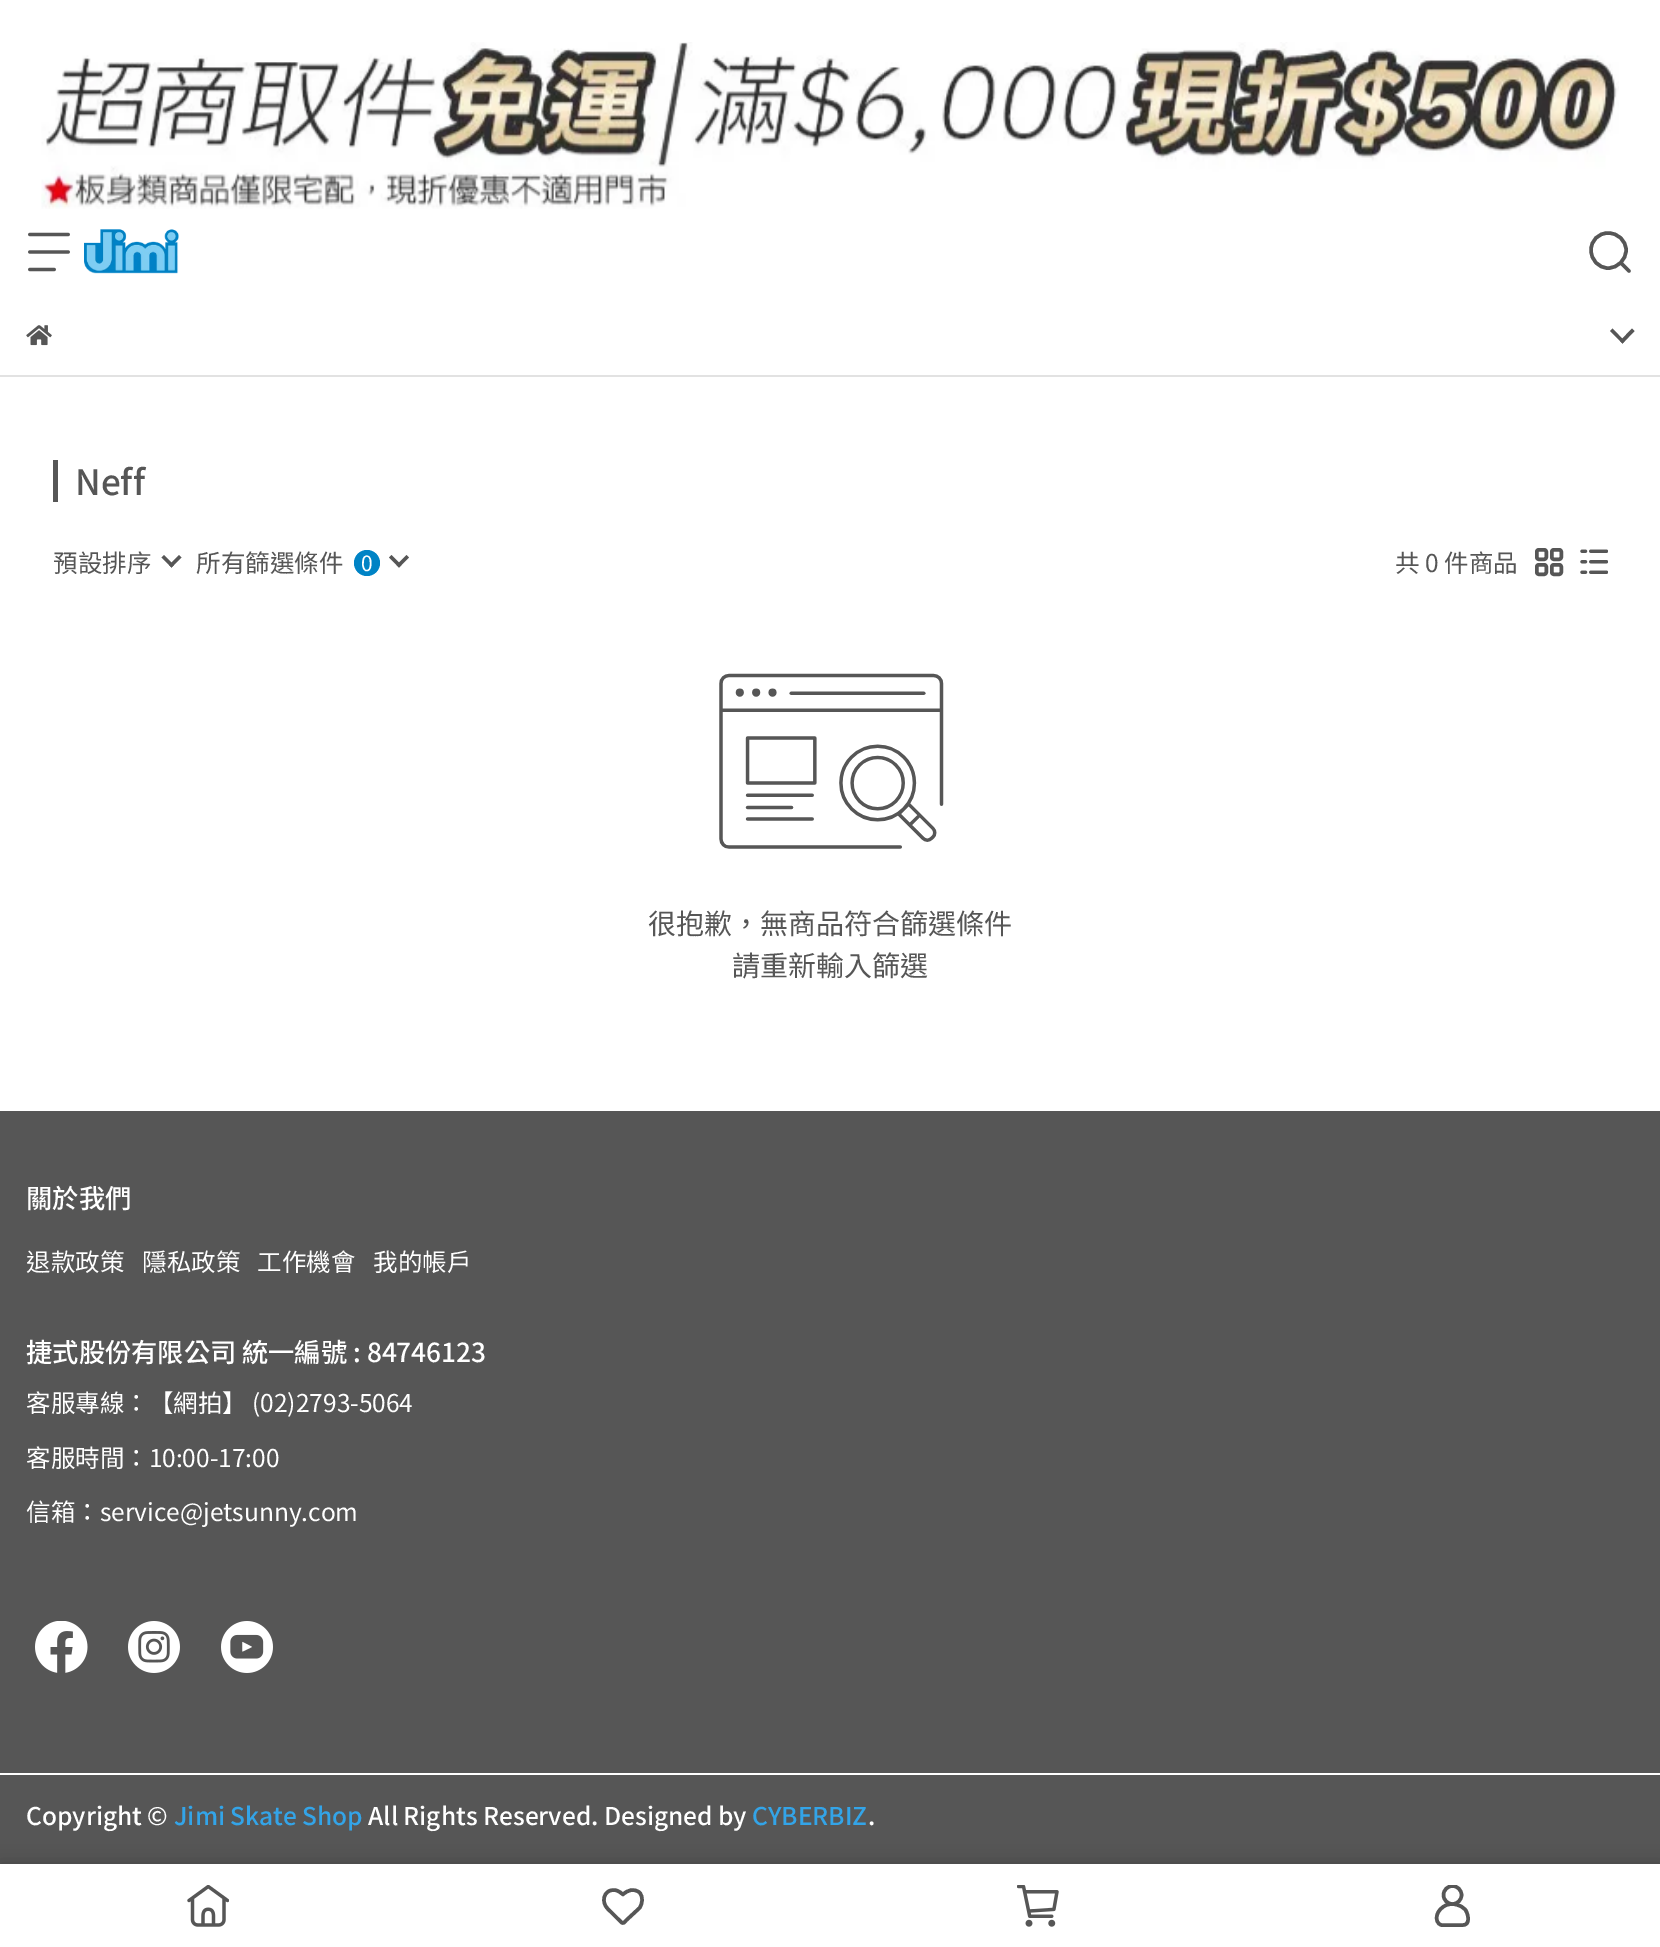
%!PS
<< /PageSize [1660 1947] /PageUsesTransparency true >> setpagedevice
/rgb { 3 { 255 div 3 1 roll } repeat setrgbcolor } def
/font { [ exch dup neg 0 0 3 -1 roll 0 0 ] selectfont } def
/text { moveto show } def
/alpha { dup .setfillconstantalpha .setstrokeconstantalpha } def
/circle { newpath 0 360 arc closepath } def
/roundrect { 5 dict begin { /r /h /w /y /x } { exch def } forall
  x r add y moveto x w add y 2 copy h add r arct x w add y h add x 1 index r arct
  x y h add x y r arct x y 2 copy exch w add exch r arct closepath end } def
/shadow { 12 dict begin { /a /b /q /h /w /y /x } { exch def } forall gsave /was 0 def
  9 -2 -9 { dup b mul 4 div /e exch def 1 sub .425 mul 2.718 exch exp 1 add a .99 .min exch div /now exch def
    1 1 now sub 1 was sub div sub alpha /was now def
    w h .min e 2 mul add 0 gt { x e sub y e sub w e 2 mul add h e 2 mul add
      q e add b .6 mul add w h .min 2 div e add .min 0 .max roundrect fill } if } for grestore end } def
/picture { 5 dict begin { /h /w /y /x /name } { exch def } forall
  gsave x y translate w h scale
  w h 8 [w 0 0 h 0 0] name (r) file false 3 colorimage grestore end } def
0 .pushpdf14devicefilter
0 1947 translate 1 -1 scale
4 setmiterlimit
255 255 255 rgb
0 0 1660 1947 rectfill
(img_01.rgb) 41 42 1578 167 picture
(img_02.rgb) 28 232 42 40 picture
(img_03.rgb) 84 229 95 45 picture
86 86 86 rgb
3.5 setlinewidth
1 setlinecap
1 setlinejoin
1626 250 moveto 0 10 -8 18 -18 18 rcurveto -9.5 0 -17 -8 -17 -18 rcurveto 0 -9.5 7.5 -17 17 -17 rcurveto 10 0 18 7.5 18 17 rcurveto closepath 1622 264 moveto 7 7 rlineto stroke
0 1111 1660 753 rectfill
0 0 0 rgb
0 1864 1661 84 0 9 0.2 shadow
255 255 255 rgb
0 1864 1660 83 rectfill
(img_04.rgb) 187 1885 42 42 picture
86 86 86 rgb
639.5 1892.5 moveto -5.5 -4.5 -12 -2.5 -16.5 2 rcurveto -2 -1.5 -4 -3.5 -6.5 -4 rcurveto -10 -3 -16 8 -10.5 16 rcurveto 1 2 3 3.5 5 5.5 rcurveto 6.5 6.5 rlineto 5.5 5 4.5 6.5 8.5 2 rcurveto 13.5 -12.5 rlineto 3 -4.5 4 -11 0 -15.5 rcurveto closepath stroke
(img_05.rgb) 1017 1885 42 42 picture
gsave
1432 1885 42 42 rectclip
0 setlinecap
0 setlinejoin
1452.5 1895 9 circle stroke
grestore
0 setlinecap
0 setlinejoin
1462.5 1925 moveto -21 0 rlineto -4.5 -1 -5.5 -6 -4.5 -9.5 rcurveto 1 -5 5 -8.5 9.5 -10.5 rcurveto 3 -1 6 -1.5 9 -0.5 rcurveto 4 0.5 7.5 2.5 10 5.5 rcurveto 3 4.5 5 15.5 -3 15 rcurveto closepath stroke
226 226 226 rgb
0 375 1660 2 rectfill
(img_06.rgb) 26 325 26 21 picture
86 86 86 rgb
1620 341 moveto 12 -12.5 rlineto 2.5 2.5 rlineto -12 12.5 rlineto closepath fill
1610 331 moveto 2.5 -2.5 rlineto 12 12.5 rlineto -2 2.5 rlineto closepath fill
53 460 5 42 rectfill
179 555 moveto 2.5 2.5 rlineto -10 10 rlineto -2.5 -2.5 rlineto closepath fill
164 555 moveto 10 10 rlineto -2.5 2.5 rlineto -10 -10 rlineto closepath fill
406.5 555 moveto 2.5 2.5 rlineto -10 10 rlineto -2.5 -2.5 rlineto closepath fill
391.5 555 moveto 10 10 rlineto -2.5 2.5 rlineto -10 -10 rlineto closepath fill
0 131 197 rgb
367 563 13 circle fill
86 86 86 rgb
1536.75 549.75 9.5 9.5 2.25 roundrect stroke
1536.75 564.75 9.5 9.5 2.25 roundrect stroke
1551.75 549.75 9.5 9.5 2.25 roundrect stroke
1551.75 564.75 9.5 9.5 2.25 roundrect stroke
(img_07.rgb) 1580 549 28 25 picture
(img_08.rgb) 719 673 225 176 picture
(img_09.rgb) 35 1621 53 52 picture
(img_10.rgb) 128 1621 52 52 picture
(img_11.rgb) 221 1621 52 52 picture
255 255 255 rgb
0 1773 1660 2 rectfill
/NotoSansTC-Medium 35 font
86 86 86 rgb
(Neff) 75 495 text
/NotoSansTC-Regular 24.5 font
(預設排序) 53 572 text
(所有篩選條件) 196 572 text
/NotoSansTC-Regular 21 font
255 255 255 rgb
(0) 361 571 text
/NotoSansTC-Regular 24.5 font
86 86 86 rgb
(共 0 件商品) 1395 572 text
/NotoSansTC-Regular 28 font
(很抱歉，無商品符合篩選條件) 648 934 text
(請重新輸入篩選) 732 976 text
/NotoSansTC-Medium 26.25 font
255 255 255 rgb
(關於我們) 26 1208 text
/NotoSansTC-Regular 24.5 font
(退款政策) 26 1271 text
(隱私政策) 142 1271 text
(工作機會) 257 1271 text
(我的帳戶) 373 1271 text
/NotoSansTC-Medium 26.25 font
(捷式股份有限公司 統一編號 : 84746123) 26 1362 text
/NotoSansTC-Regular 24.5 font
(客服專線：【網拍】 \(02\)2793-5064) 26 1412 text
(客服時間：10:00-17:00) 26 1467 text
(信箱：service@jetsunny.com) 26 1521 text
/NotoSansTC-Medium 24.5 font
(Copyright ©) 26 1825 text
51 164 232 rgb
(Jimi Skate Shop) 174 1825 text
255 255 255 rgb
(All Rights Reserved. Designed by) 368 1825 text
51 164 232 rgb
(CYBERBIZ) 752 1825 text
255 255 255 rgb
(.) 868 1825 text
.poppdf14devicefilter showpage
